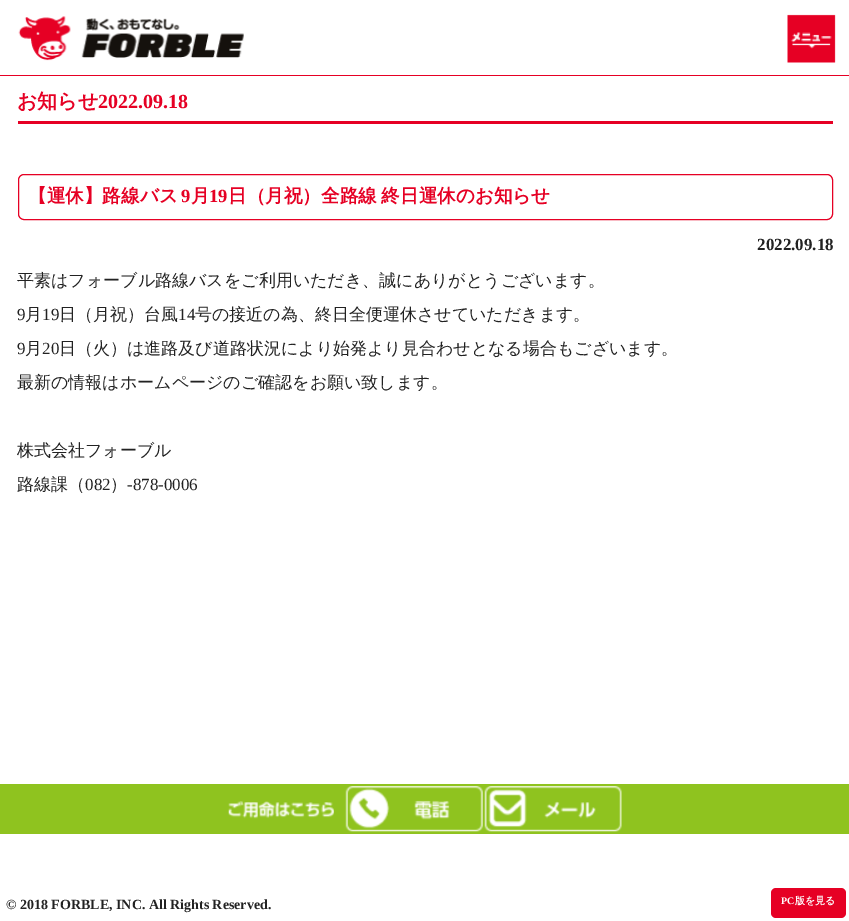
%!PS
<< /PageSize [849 921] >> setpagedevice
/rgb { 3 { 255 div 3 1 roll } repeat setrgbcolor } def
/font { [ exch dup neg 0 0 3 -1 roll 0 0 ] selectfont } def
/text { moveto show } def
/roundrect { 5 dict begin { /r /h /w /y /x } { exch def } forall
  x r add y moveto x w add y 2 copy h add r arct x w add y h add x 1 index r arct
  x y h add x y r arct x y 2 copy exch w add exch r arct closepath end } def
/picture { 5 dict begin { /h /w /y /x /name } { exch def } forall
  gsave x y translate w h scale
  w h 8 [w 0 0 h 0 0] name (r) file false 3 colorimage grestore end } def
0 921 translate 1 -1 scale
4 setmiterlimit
255 255 255 rgb
0 0 849 921 rectfill
230 0 36 rgb
0 75 849 1 rectfill
(img_01.rgb) 18 16 226 45 picture
(img_02.rgb) 787 14 49 49 picture
18 121 815 3 rectfill
18.5 174.5 814 45 5.5 roundrect stroke
143 195 31 rgb
0 784 849 50 rectfill
(img_03.rgb) 228 801 106 18 picture
(img_04.rgb) 345 786 138 46 picture
(img_05.rgb) 484 786 138 46 picture
230 0 36 rgb
771 888 75 30 5 roundrect fill
/WenQuanYiZenHei-Bold 20 font
(お知らせ) 17 108 text
/LiberationSerif-Bold 20 font
(2022.09.18) 98 108 text
/WenQuanYiZenHei-Bold 18.6 font
(【運休】路線バス) 28 202 text
/LiberationSerif-Bold 18.6 font
(9) 181 202 text
/WenQuanYiZenHei-Bold 18.6 font
(月) 191 202 text
/LiberationSerif-Bold 18.6 font
(19) 209 202 text
/WenQuanYiZenHei-Bold 18.6 font
228 202 moveto -1 0 32 (日（月祝）全路線 終日運休のお知らせ) widthshow
/LiberationSerif-Bold 17 font
34 34 34 rgb
(2022.09.18) 757 250 text
/WenQuanYiZenHei-Medium 17 font
(平素はフォーブル路線バスをご利用いただき、誠にありがとうございます。) 17 286 text
/LiberationSerif-Regular 17 font
(9) 17 320 text
/WenQuanYiZenHei-Medium 17 font
(月) 25 320 text
/LiberationSerif-Regular 17 font
(19) 42 320 text
/WenQuanYiZenHei-Medium 17 font
(日（月祝）台風) 59 320 text
/LiberationSerif-Regular 17 font
(14) 178 320 text
/WenQuanYiZenHei-Medium 17 font
(号の接近の為、終日全便運休させていただきます。) 195 320 text
/LiberationSerif-Regular 17 font
(9) 17 354 text
/WenQuanYiZenHei-Medium 17 font
(月) 25 354 text
/LiberationSerif-Regular 17 font
(20) 42 354 text
/WenQuanYiZenHei-Medium 17 font
(日（火）は進路及び道路状況により始発より見合わせとなる場合もございます。) 59 354 text
(最新の情報はホームページのご確認をお願い致します。) 17 388 text
(株式会社フォーブル) 17 456 text
(路線課（) 17 490 text
/LiberationSerif-Regular 17 font
(082) 85 490 text
/WenQuanYiZenHei-Medium 17 font
(）) 110 490 text
/LiberationSerif-Regular 17 font
(-878-0006) 127 490 text
/LiberationSerif-Bold 14 font
(© 2018 FORBLE, INC. All Rights Reserved.) 6 909 text
/LiberationSerif-Bold 10 font
255 255 255 rgb
(PC) 781 904 text
/WenQuanYiZenHei-Bold 10 font
(版を見る) 795 904 text
showpage
